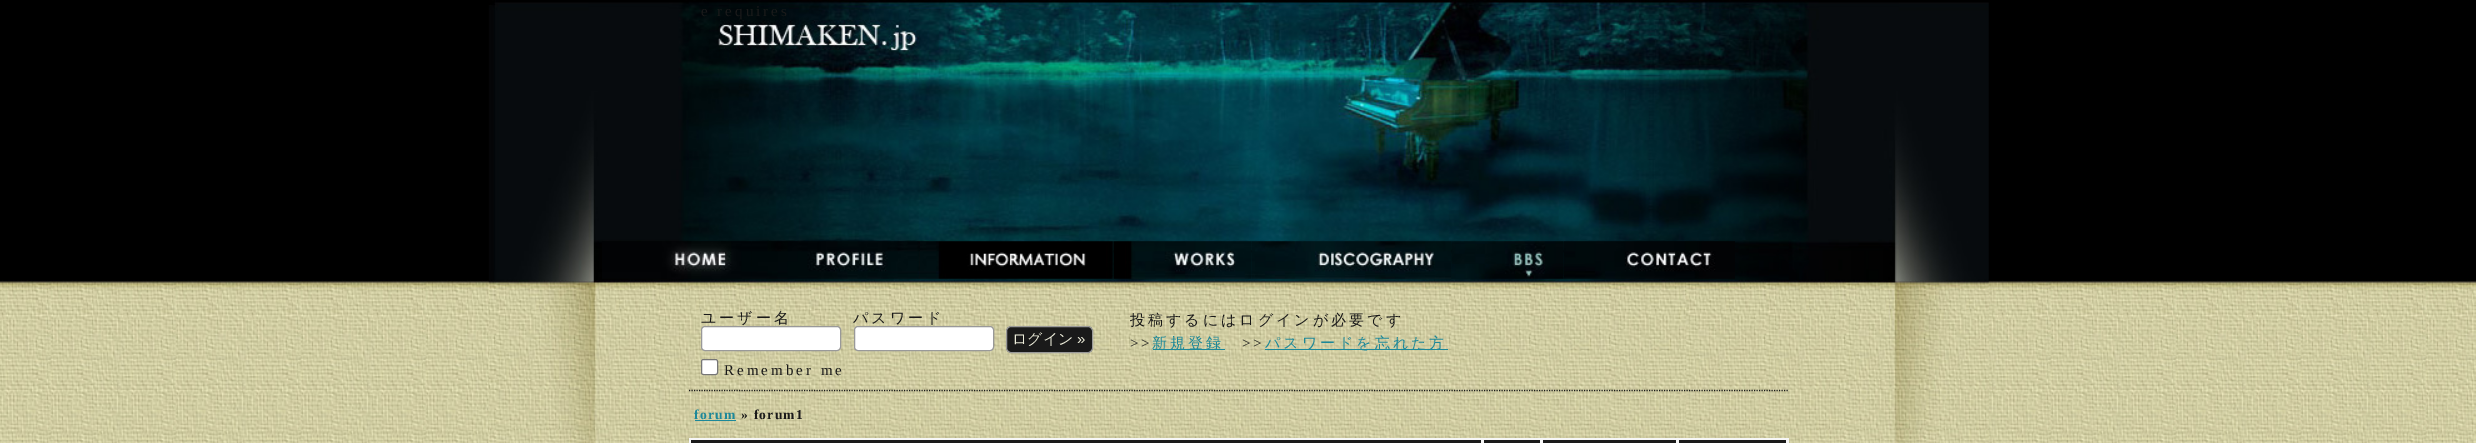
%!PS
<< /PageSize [2476 443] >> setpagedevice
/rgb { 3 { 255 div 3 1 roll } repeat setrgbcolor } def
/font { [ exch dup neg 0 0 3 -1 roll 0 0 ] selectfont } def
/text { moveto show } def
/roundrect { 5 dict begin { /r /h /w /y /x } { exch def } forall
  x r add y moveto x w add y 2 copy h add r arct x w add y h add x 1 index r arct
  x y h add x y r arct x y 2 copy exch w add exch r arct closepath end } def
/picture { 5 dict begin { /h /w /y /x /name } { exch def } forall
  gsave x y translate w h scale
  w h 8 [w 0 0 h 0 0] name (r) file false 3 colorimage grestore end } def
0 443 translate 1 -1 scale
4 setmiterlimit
255 255 255 rgb
0 0 2476 443 rectfill
(img_01.rgb) 0 0 2476 443 picture
(img_02.rgb) 488 0 1501 443 picture
(img_03.rgb) 602 241 149 38 picture
(img_04.rgb) 751 241 169 38 picture
(img_05.rgb) 920 241 194 38 picture
(img_06.rgb) 1113 241 139 38 picture
(img_07.rgb) 1251 241 201 38 picture
(img_08.rgb) 1451 241 113 38 picture
(img_09.rgb) 1564 241 171 38 picture
gsave
689 279 1100 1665 rectclip
26 26 26 rgb
1.2 setlinewidth
[1.25 1.25] 0 setdash
689 390.5 moveto 1112 0 rlineto stroke
grestore
701.5 326.5 139 24 3.5 roundrect gsave fill grestore
153 153 153 rgb
stroke
255 255 255 rgb
854.5 326.5 139 24 3.5 roundrect gsave fill grestore
153 153 153 rgb
stroke
26 26 26 rgb
1006.5 326.5 86 26 4.5 roundrect gsave fill grestore
153 153 153 rgb
stroke
29 136 153 rgb
1153 349 72 1 rectfill
1265 349 183 1 rectfill
255 255 255 rgb
701.5 359.5 16 15 2 roundrect gsave fill grestore
118 118 118 rgb
stroke
29 136 153 rgb
695 420 41 1 rectfill
247 247 247 rgb
689 438 1100 5 rectfill
26 26 26 rgb
691 440 790 3 rectfill
1484 440 56 3 rectfill
1543 440 133 3 rectfill
1679 440 107 3 rectfill
/LiberationSerif-Regular 15 font
701 16 moveto 3 0 (e requires) ashow
/WenQuanYiZenHei-Medium 15 font
701 323 moveto 3 0 (ユーザー名) ashow
853 323 moveto 3 0 (パスワード) ashow
237 237 218 rgb
(ログイン) 1012 344 text
/LiberationSans-Regular 15 font
(») 1077 344 text
/WenQuanYiZenHei-Medium 15 font
26 26 26 rgb
1130 325 moveto 3 0 (投稿するにはログインが必要です) ashow
/LiberationSerif-Regular 15 font
1130 348 moveto 3 0 (>>) ashow
/WenQuanYiZenHei-Medium 15 font
29 136 153 rgb
1152 348 moveto 3 0 (新規登録) ashow
/LiberationSerif-Regular 15 font
26 26 26 rgb
1242 348 moveto 3 0 (>>) ashow
/WenQuanYiZenHei-Medium 15 font
29 136 153 rgb
1265 348 moveto 3 0 (パスワードを忘れた方) ashow
/LiberationSerif-Regular 15 font
26 26 26 rgb
724 375 moveto 3 0 (Remember me) ashow
/LiberationSerif-Bold 13.5 font
29 136 153 rgb
694 419 moveto 1.25 0 (forum) ashow
26 26 26 rgb
741 419 moveto 1.25 0 (» forum1) ashow
showpage
